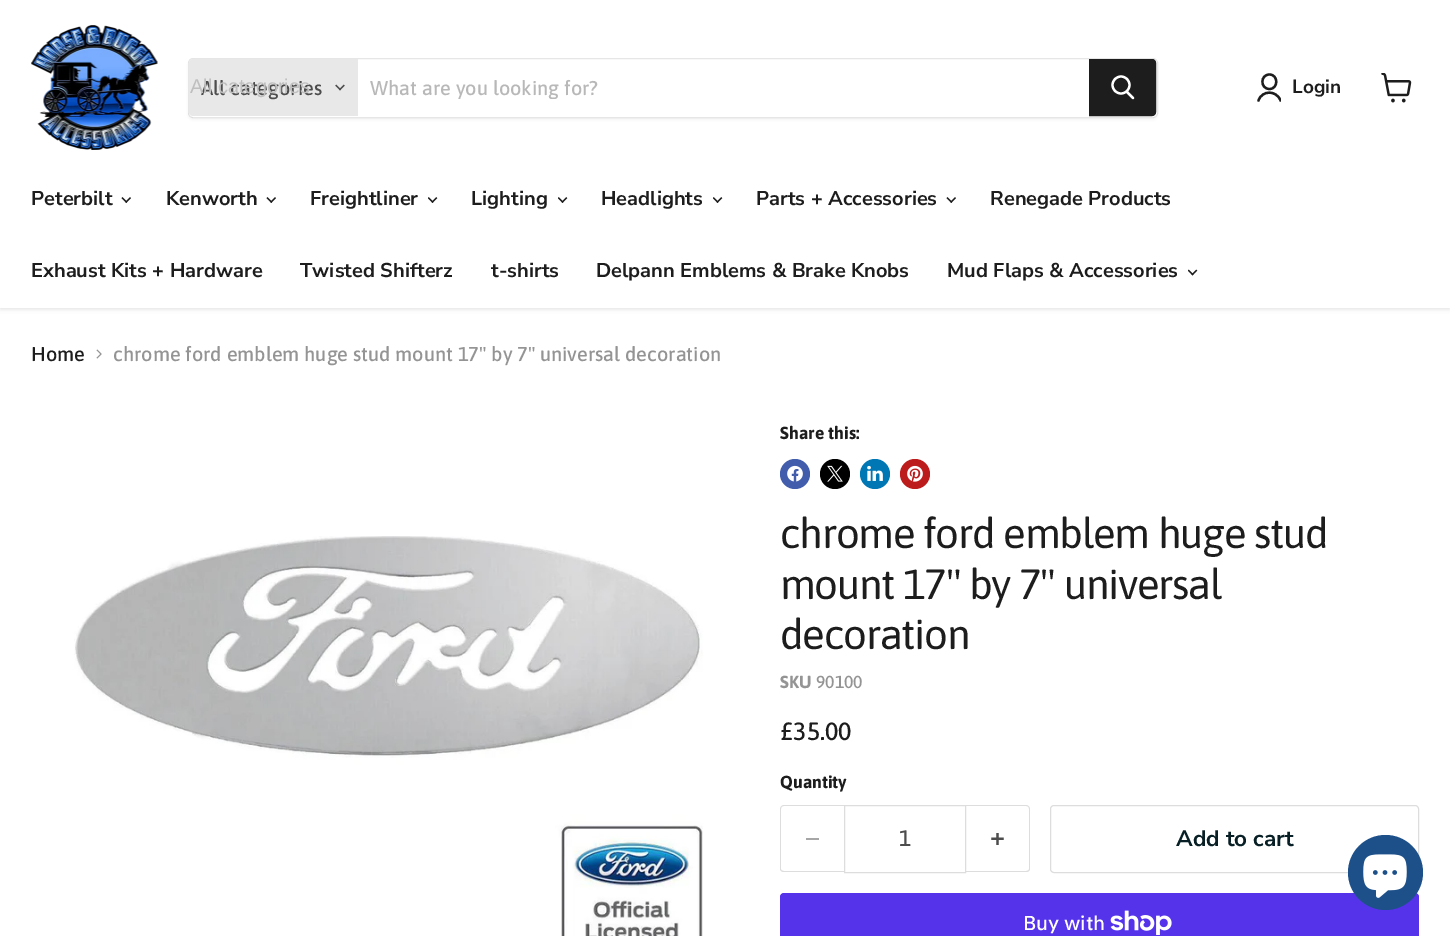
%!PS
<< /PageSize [1450 936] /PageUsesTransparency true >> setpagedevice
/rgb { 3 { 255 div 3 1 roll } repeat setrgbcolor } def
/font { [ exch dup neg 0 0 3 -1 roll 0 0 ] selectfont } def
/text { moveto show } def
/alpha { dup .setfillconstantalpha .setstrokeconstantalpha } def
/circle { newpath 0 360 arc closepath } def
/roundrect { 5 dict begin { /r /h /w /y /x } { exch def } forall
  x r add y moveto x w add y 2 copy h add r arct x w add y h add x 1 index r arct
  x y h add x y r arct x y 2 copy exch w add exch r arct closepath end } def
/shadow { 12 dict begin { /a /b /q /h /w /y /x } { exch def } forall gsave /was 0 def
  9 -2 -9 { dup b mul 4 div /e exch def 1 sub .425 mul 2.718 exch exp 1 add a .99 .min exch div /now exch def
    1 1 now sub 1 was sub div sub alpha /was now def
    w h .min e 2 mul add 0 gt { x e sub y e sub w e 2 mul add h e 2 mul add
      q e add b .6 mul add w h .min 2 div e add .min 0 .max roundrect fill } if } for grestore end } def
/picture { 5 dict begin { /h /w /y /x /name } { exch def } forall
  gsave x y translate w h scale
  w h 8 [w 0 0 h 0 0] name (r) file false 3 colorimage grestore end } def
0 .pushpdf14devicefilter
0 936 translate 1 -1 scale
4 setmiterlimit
255 255 255 rgb
0 0 1450 936 rectfill
128 128 128 rgb
0 1 1450 308 0 2.5 0.25 shadow
255 255 255 rgb
0 0 1450 308 rectfill
(img_01.rgb) 31 25 127 125 picture
gsave
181 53 moveto 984 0 rlineto 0 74 rlineto -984 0 rlineto closepath 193 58 moveto 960 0 rlineto 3 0 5 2 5 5 rcurveto 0 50 rlineto 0 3 -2 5 -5 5 rcurveto -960 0 rlineto -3 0 -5 -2 -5 -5 rcurveto 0 -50 rlineto 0 -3 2 -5 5 -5 rcurveto closepath eoclip newpath
128 128 128 rgb
188 60 970 60 5 2 0.11 shadow
grestore
0.2 alpha
128 128 128 rgb
188.5 58.5 969 59 4.5 roundrect stroke
1 alpha
232 232 232 rgb
193 59 moveto 165 0 rlineto 0 57 rlineto -165 0 rlineto -2 0 -4 -2 -4 -4 rcurveto 0 -49 rlineto 0 -2 2 -4 4 -4 rcurveto closepath fill
(img_02.rgb) 335 84 10 7 picture
29 29 29 rgb
1089.5 59.5 moveto 62.5 0 rlineto 2 0 3.5 1.5 3.5 3.5 rcurveto 0 49 rlineto 0 2 -1.5 3.5 -3.5 3.5 rcurveto -62.5 0 rlineto closepath gsave fill grestore
stroke
255 255 255 rgb
2.2 setlinewidth
1 setlinecap
1133 98 moveto -6 -6 rlineto stroke
0 setlinecap
1121 85 8.5 circle stroke
29 29 29 rgb
2.3 setlinewidth
1 setlinecap
1 setlinejoin
1269.5 89 moveto 9 0 9 -14.5 0 -14.5 rcurveto -9.5 0 -9.5 14.5 0 14.5 rcurveto closepath stroke
gsave
1256 73 25 30 rectclip
1280.5 100.5 moveto -4 -10.5 -18.5 -10.5 -22 0 rcurveto stroke
grestore
(img_03.rgb) 1381 73 31 30 picture
(img_04.rgb) 121 197 10 6 picture
(img_04.rgb) 266 197 10 6 picture
(img_05.rgb) 428 197 10 6 picture
(img_05.rgb) 558 197 10 6 picture
(img_05.rgb) 713 197 10 6 picture
(img_04.rgb) 946 197 10 6 picture
(img_06.rgb) 1188 269 10 7 picture
(img_07.rgb) 96 349 6 10 picture
(img_08.rgb) 74 536 629 400 picture
66 93 171 rgb
795 474 15 circle fill
(img_09.rgb) 787 465 16 17 picture
0 0 0 rgb
835 474 15 circle fill
(img_10.rgb) 827 465 16 17 picture
0 119 181 rgb
875 474 15 circle fill
(img_11.rgb) 867 465 16 16 picture
189 28 28 rgb
915 474 15 circle fill
(img_12.rgb) 907 465 16 17 picture
221 221 221 rgb
784 805 moveto 60 0 rlineto 0 67 rlineto -60 0 rlineto -2 0 -4 -1 -4 -3 rcurveto 0 -60 rlineto 0 -2 2 -4 4 -4 rcurveto closepath 784 806 moveto 60 0 rlineto 0 65 rlineto -60 0 rlineto -2 0 -3 -1 -3 -2 rcurveto 0 -60 rlineto 0 -2 1 -3 3 -3 rcurveto closepath eofill
166 166 166 rgb
806 838 13 2 rectfill
221 221 221 rgb
1 setlinewidth
0 setlinecap
0 setlinejoin
844.5 805.5 121 67 rectstroke
966 805 moveto 60 0 rlineto 2 0 4 2 4 4 rcurveto 0 60 rlineto 0 2 -2 3 -4 3 rcurveto -60 0 rlineto closepath 966 806 moveto 60 0 rlineto 2 0 3 1 3 3 rcurveto 0 60 rlineto 0 1 -1 2 -3 2 rcurveto -60 0 rlineto closepath eofill
(img_13.rgb) 991 833 13 12 picture
1050.5 805.5 368 67 3.5 roundrect stroke
84 51 235 rgb
780 893 639 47 4 roundrect fill
(img_14.rgb) 1110 910 62 25 picture
29 80 137 rgb
1385.5 872.5 37.5 circle fill
(img_15.rgb) 1363 854 44 44 picture
/Asap-Medium 20 font
77 77 77 rgb
(All categories) 201 95 text
/LiberationSans-Regular 20 font
191 191 191 rgb
(All categories) 190 93 text
gsave
370 76 706 23 rectclip
/Asap-Medium 20 font
184 184 184 rgb
(What are you looking for?) 370 95 text
grestore
/NunitoSans-Bold 19 font
29 29 29 rgb
(Login) 1292 93 text
/NunitoSans-Bold 20 font
(Peterbilt) 31 205 text
(Kenworth) 166 205 text
(Freightliner) 310 205 text
(Lighting) 471 205 text
(Headlights) 601 205 text
(Parts + Accessories) 756 205 text
(Renegade Products) 990 205 text
(Exhaust Kits + Hardware) 31 277 text
(Twisted Shifterz) 300 277 text
(t-shirts) 491 277 text
(Delpann Emblems & Brake Knobs) 596 277 text
(Mud Flaps & Accessories) 947 277 text
/Asap-Medium 20 font
(Home) 31 361 text
148 148 148 rgb
(chrome ford emblem huge stud mount 17" by 7" universal decoration) 113 361 text
/Asap-Bold 17.5 font
29 29 29 rgb
(Share this:) 780 439 text
/Asap-Regular 42 font
780 548 moveto -1.25 0 (chrome ford emblem huge stud) ashow
780 599 moveto -1.25 0 (mount 17" by 7" universal) ashow
780 649 moveto -1.25 0 (decoration) ashow
/Asap-Bold 17.5 font
148 148 148 rgb
(SKU) 780 688 text
/Asap-Medium 17.5 font
(90100) 816 688 text
/Asap-Medium 25 font
29 29 29 rgb
(£35.00) 780 740 text
/Asap-Bold 17.5 font
(Quantity) 780 788 text
/Asap-Medium 22.5 font
77 77 77 rgb
(1) 899 846 text
/NunitoSans-Bold 22.5 font
8 32 37 rgb
(Add to cart) 1176 846 text
/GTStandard-Medium 20 font
255 255 255 rgb
(Buy with) 1023 930 text
.poppdf14devicefilter showpage
